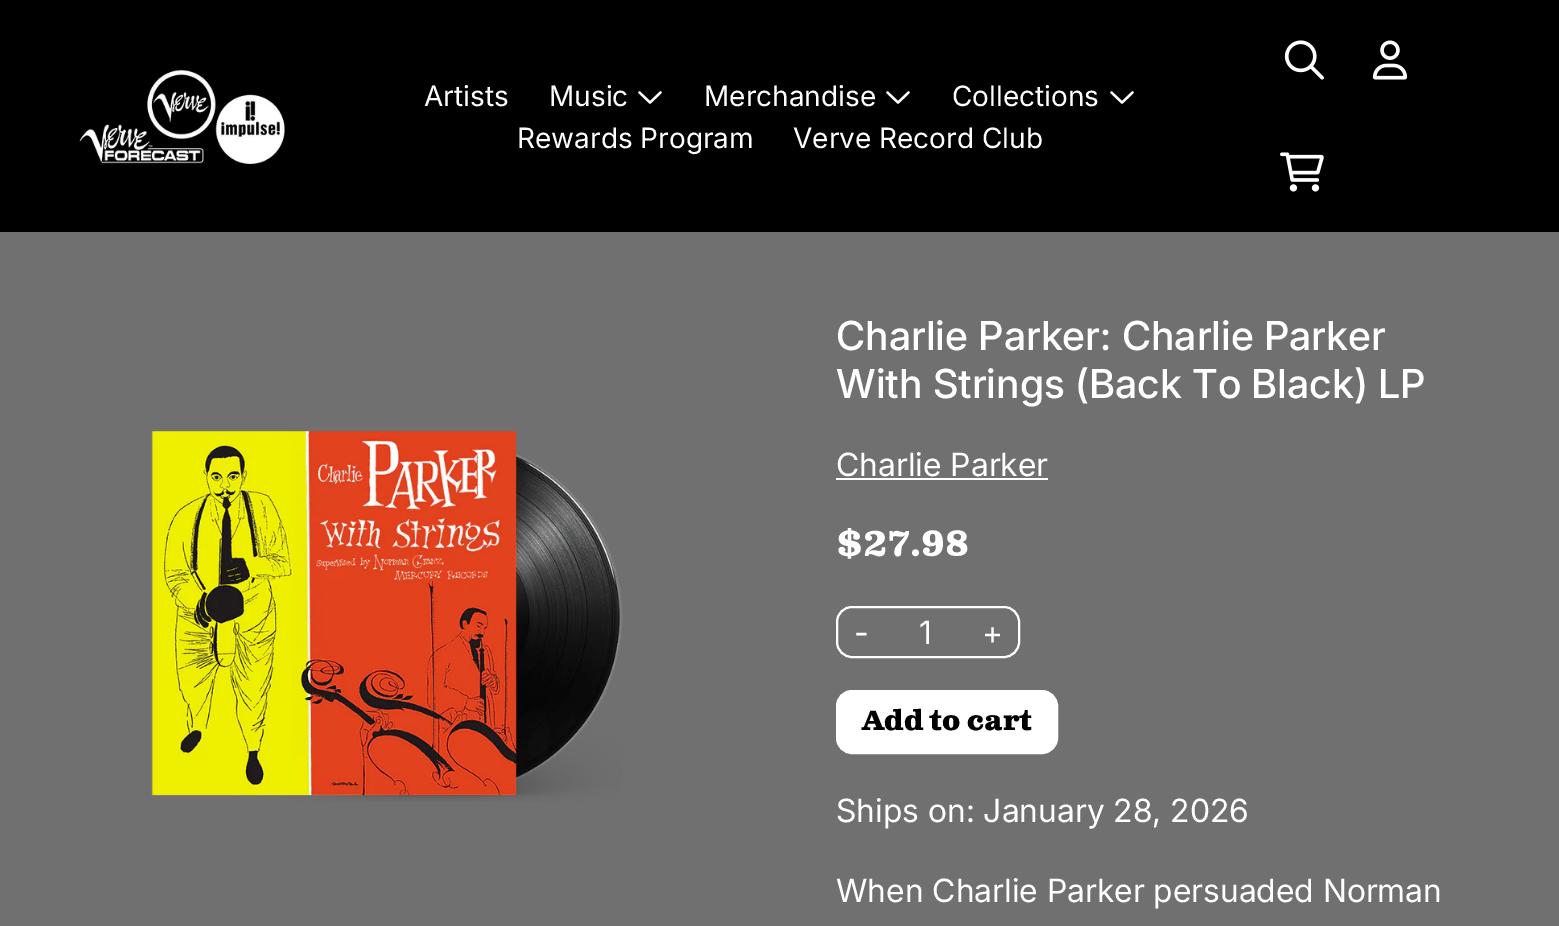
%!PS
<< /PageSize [1559 926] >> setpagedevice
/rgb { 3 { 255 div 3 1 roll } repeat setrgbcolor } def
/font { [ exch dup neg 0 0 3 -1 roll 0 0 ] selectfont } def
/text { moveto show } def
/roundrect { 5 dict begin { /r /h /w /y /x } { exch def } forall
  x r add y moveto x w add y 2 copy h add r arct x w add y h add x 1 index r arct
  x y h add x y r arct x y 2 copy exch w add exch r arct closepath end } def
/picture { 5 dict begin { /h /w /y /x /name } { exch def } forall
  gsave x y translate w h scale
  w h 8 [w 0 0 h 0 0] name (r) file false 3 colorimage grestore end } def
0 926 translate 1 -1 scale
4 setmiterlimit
0 0 0 rgb
0 0 1559 926 rectfill
(img_01.rgb) 79 69 206 96 picture
(img_02.rgb) 638 91 24 13 picture
(img_02.rgb) 886 91 24 13 picture
(img_02.rgb) 1110 91 24 13 picture
(img_03.rgb) 1284 40 40 40 picture
(img_04.rgb) 1372 40 36 40 picture
(img_05.rgb) 1280 152 44 40 picture
112 112 112 rgb
0 232 1559 694 rectfill
(img_06.rgb) 151 431 472 371 picture
255 255 255 rgb
836 478 212 2 rectfill
2 setlinewidth
837 607 182 50 15 roundrect stroke
837 691 220 62 15 roundrect gsave fill grestore
stroke
/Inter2-Regular 28 font
(Artists) 424 106 text
(Music) 549 106 text
(Merchandise) 704 106 text
(Collections) 952 106 text
(Rewards Program) 517 148 text
(Verve Record Club) 793 148 text
/Inter-Medium 40 font
(Charlie Parker: Charlie Parker) 836 350 text
(With Strings \(Back To Black\) LP) 836 398 text
/Inter-Regular 32 font
(Charlie Parker) 836 476 text
/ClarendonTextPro-Bold 36 font
($27.98) 836 556 text
/Inter-Regular 32 font
(-) 854 644 text
(1) 919 644 text
(+) 982 644 text
/ClarendonTextPro-Bold 28 font
0 0 0 rgb
(Add to cart) 862 730 text
/Inter-Regular 32 font
255 255 255 rgb
(Ships on: January 28, 2026) 836 822 text
(When Charlie Parker persuaded Norman) 836 902 text
showpage
